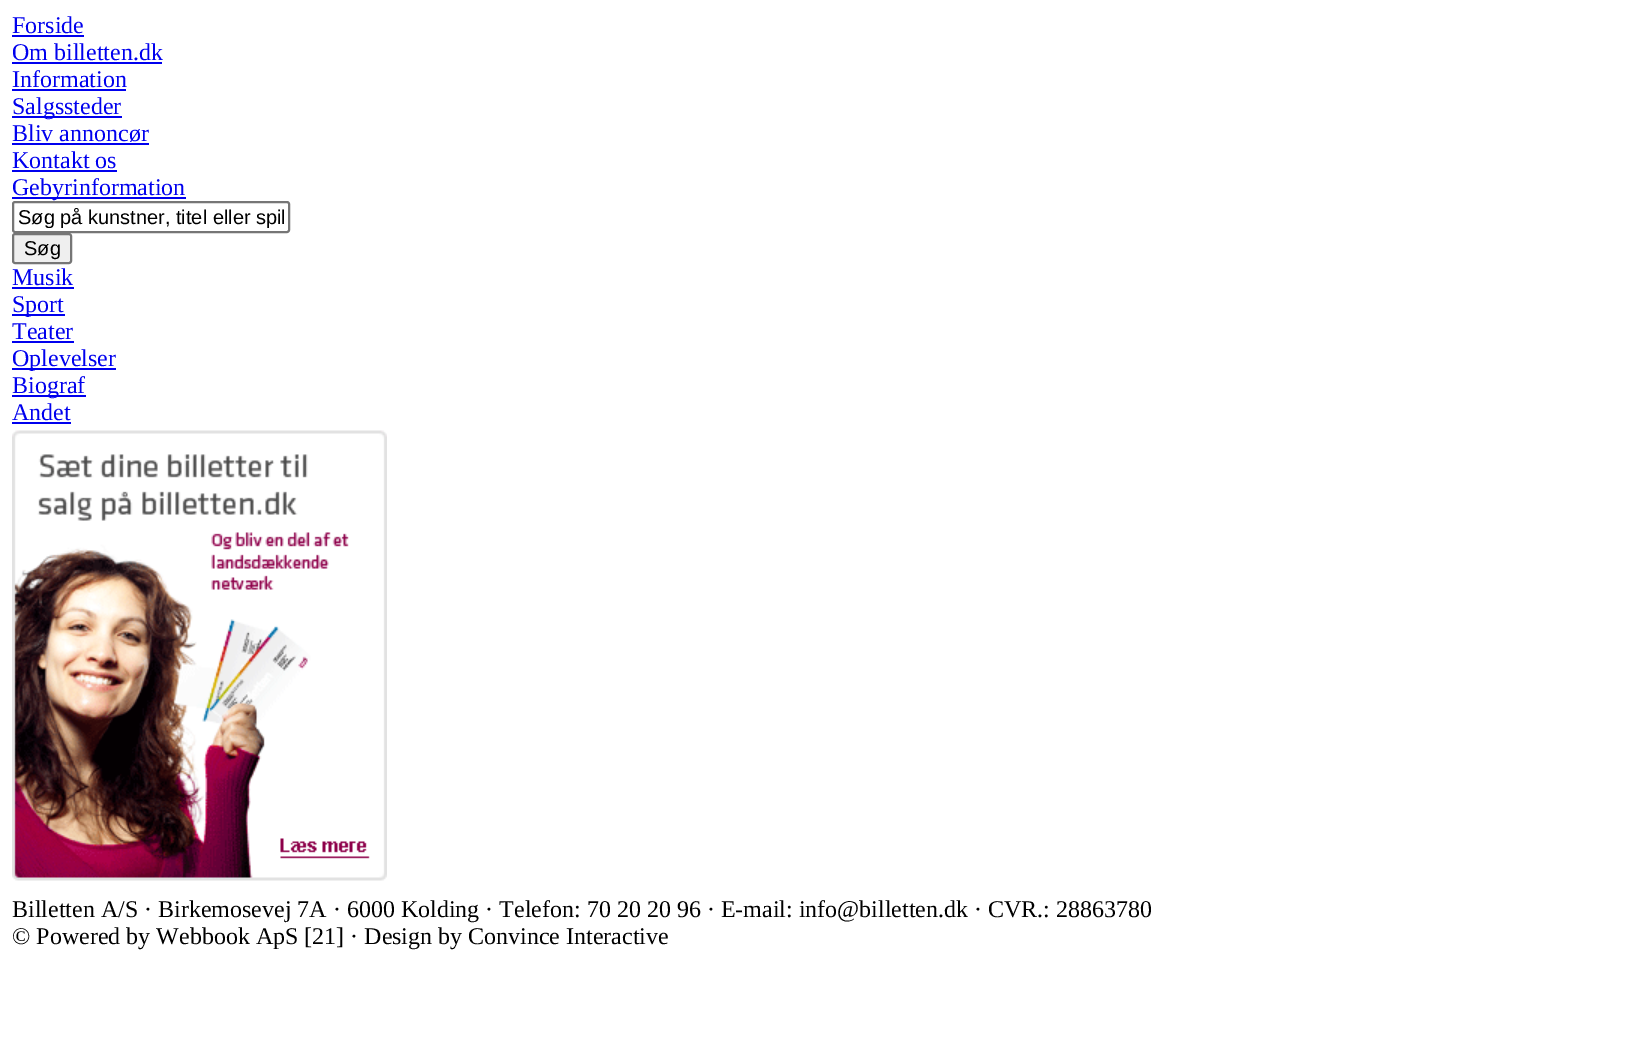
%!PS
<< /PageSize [1625 1046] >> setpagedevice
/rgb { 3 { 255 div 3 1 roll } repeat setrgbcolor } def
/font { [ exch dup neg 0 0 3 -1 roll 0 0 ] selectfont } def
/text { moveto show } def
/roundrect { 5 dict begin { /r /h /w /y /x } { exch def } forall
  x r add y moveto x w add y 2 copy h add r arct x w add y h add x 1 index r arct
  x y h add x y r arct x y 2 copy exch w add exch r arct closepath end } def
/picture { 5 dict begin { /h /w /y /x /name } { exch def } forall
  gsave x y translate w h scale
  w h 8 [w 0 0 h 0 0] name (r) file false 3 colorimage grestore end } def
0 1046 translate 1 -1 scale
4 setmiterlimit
255 255 255 rgb
0 0 1625 1046 rectfill
0 0 238 rgb
12 35 72 2 rectfill
12 62 150 2 rectfill
12 89 114 2 rectfill
12 116 110 2 rectfill
12 143 137 2 rectfill
12 170 105 2 rectfill
12 197 174 2 rectfill
118 118 118 rgb
2 setlinewidth
13 202 276 30 2 roundrect stroke
239 239 239 rgb
13 234 58 29 2 roundrect gsave fill grestore
118 118 118 rgb
stroke
0 0 238 rgb
12 287 62 2 rectfill
12 314 53 2 rectfill
12 341 62 2 rectfill
12 368 104 2 rectfill
12 395 74 2 rectfill
12 422 59 2 rectfill
(img_01.rgb) 12 430 375 451 picture
/LiberationSerif-Regular 24 font
(Forside) 12 33 text
(Om billetten.dk) 12 60 text
(Information) 12 87 text
(Salgssteder) 12 114 text
(Bliv annoncør) 12 141 text
(Kontakt os) 12 168 text
(Gebyrinformation) 12 195 text
gsave
18 206 266 22 rectclip
/LiberationSans-Regular 20 font
0 0 0 rgb
(Søg på kunstner, titel eller spil) 18 224 text
grestore
/LiberationSans-Regular 20 font
0 0 0 rgb
(Søg) 24 255 text
/LiberationSerif-Regular 24 font
0 0 238 rgb
(Musik) 12 285 text
(Sport) 12 312 text
(Teater) 12 339 text
(Oplevelser) 12 366 text
(Biograf) 12 393 text
(Andet) 12 420 text
0 0 0 rgb
(Billetten A/S · Birkemosevej 7A · 6000 Kolding · Telefon: 70 20 20 96 · E-mail: info@billetten.dk · CVR.: 28863780) 12 917 text
(© Powered by Webbook ApS [21] · Design by Convince Interactive) 12 944 text
showpage
